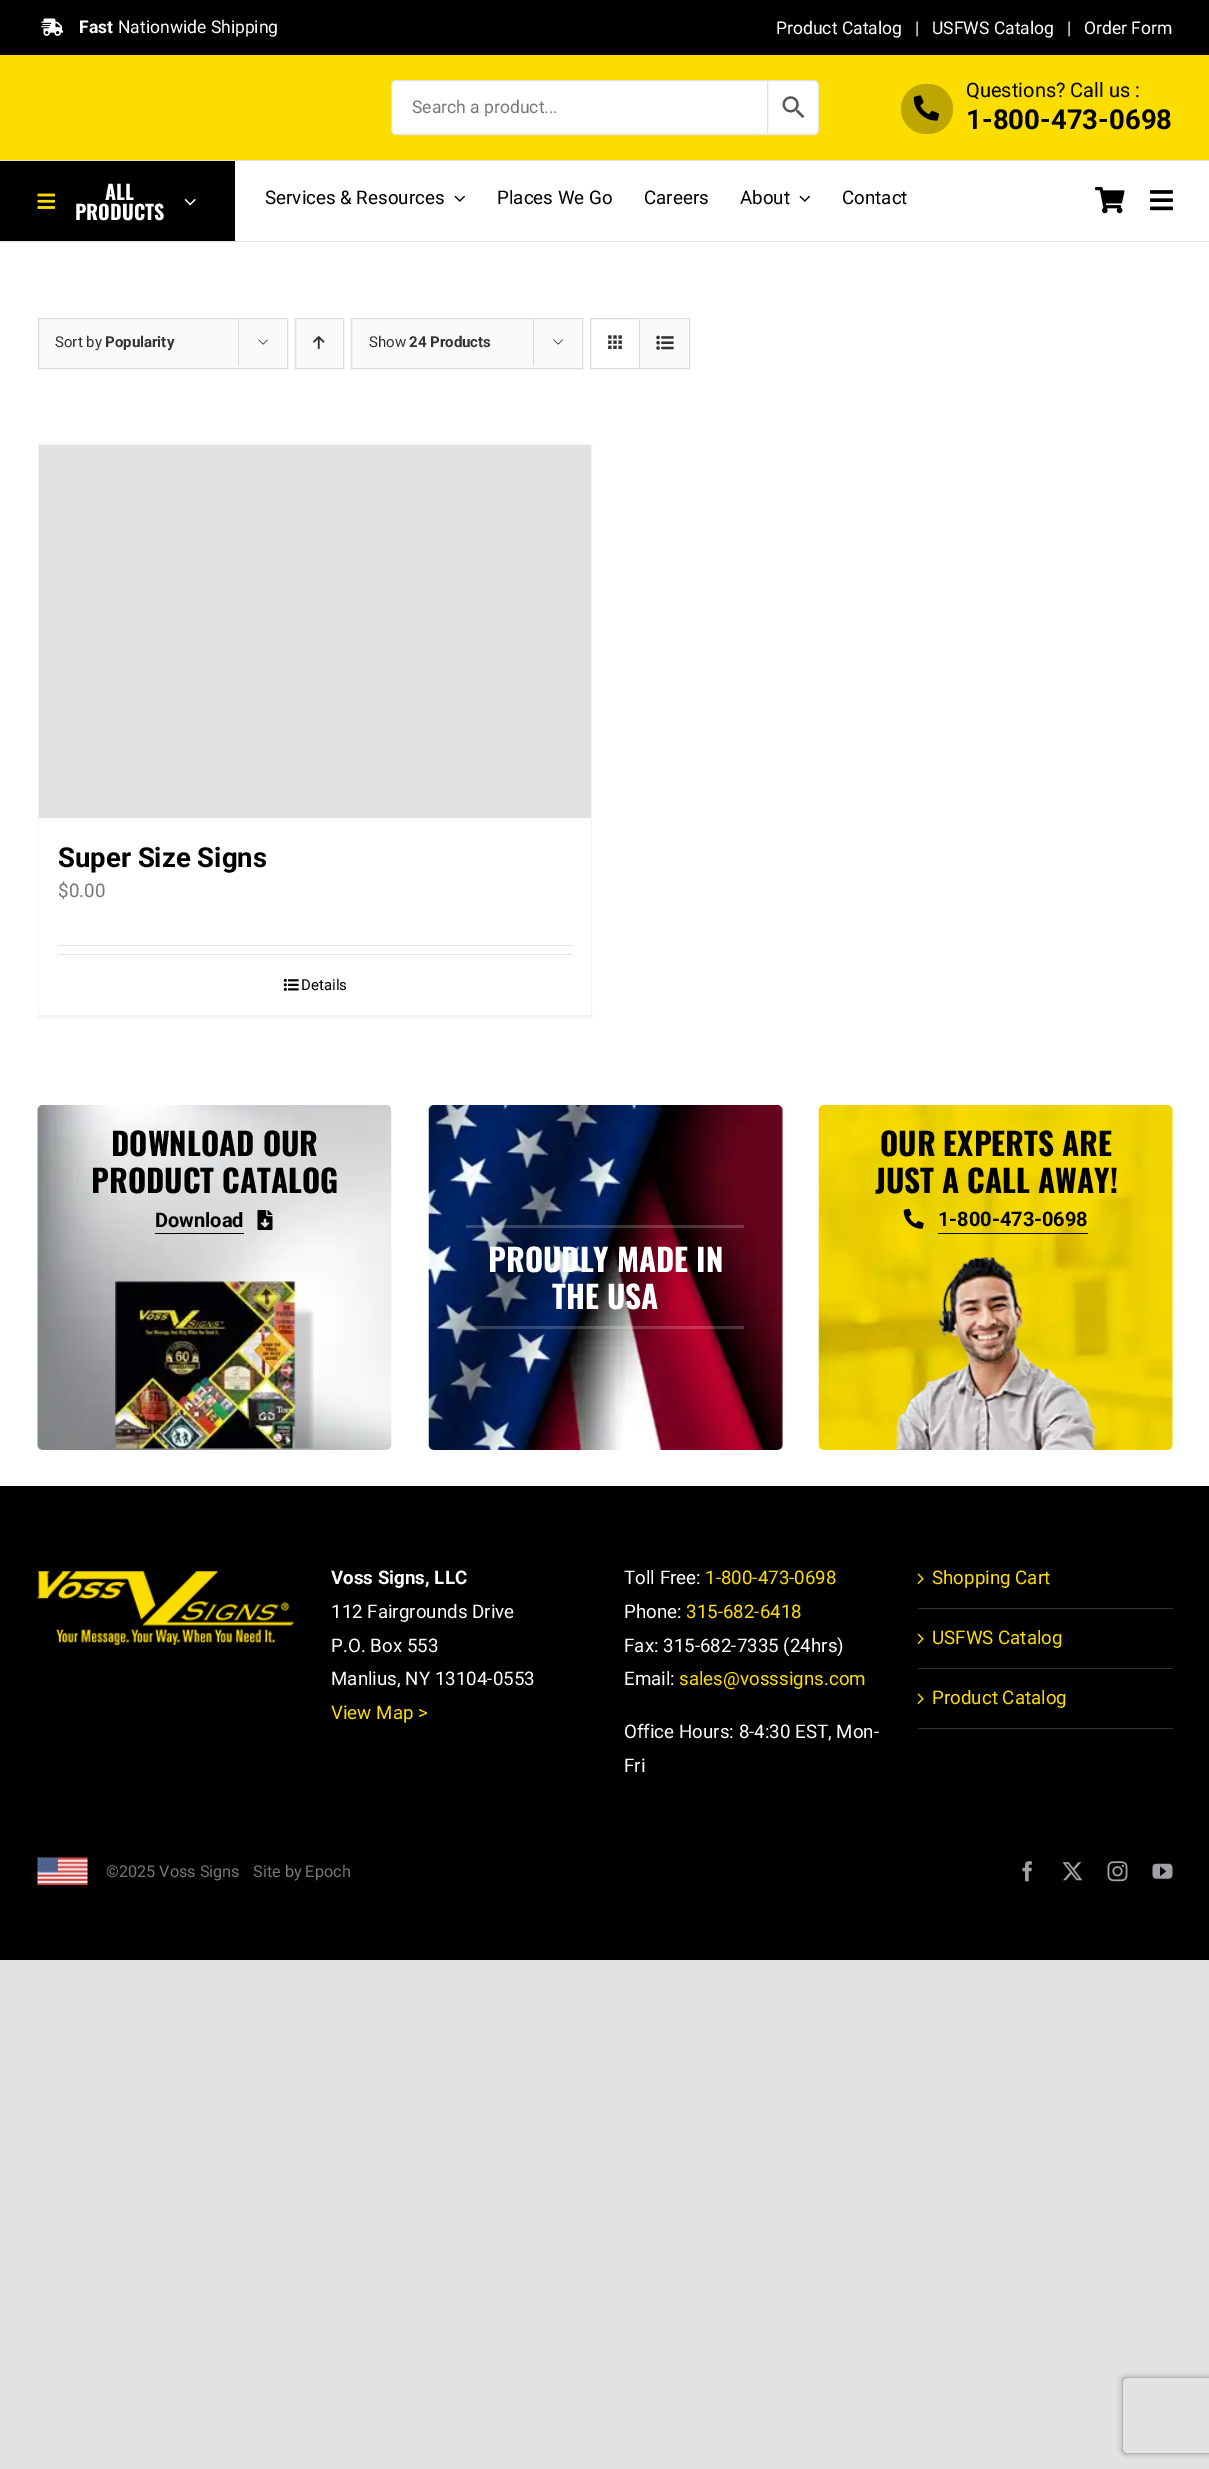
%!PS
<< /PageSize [1209 2469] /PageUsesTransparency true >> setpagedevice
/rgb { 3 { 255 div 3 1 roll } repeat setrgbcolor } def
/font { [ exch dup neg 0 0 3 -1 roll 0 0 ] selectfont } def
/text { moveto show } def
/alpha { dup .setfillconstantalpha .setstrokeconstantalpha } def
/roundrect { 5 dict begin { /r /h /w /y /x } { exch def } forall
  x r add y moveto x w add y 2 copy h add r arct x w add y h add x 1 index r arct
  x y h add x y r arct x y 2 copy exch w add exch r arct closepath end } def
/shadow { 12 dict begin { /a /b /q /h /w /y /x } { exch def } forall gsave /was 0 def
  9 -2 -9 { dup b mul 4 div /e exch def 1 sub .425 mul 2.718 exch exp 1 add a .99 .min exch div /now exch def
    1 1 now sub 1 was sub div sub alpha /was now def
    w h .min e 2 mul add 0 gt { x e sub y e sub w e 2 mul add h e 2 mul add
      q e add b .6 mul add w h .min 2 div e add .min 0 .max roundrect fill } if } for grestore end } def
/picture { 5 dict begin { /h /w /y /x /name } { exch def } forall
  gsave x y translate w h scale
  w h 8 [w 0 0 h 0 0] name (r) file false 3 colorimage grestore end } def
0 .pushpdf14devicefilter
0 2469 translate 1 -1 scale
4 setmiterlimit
226 226 226 rgb
0 0 1209 2469 rectfill
255 255 255 rgb
0 161 1209 1325 rectfill
0 0 0 rgb
0 0 1209 55 rectfill
(img_01.rgb) 41 18 23 18 picture
252 221 0 rgb
0 55 1209 105 rectfill
255 255 255 rgb
766.5 80.5 moveto 47.5 0 rlineto 2.5 0 4.5 2 4.5 4.5 rcurveto 0 45 rlineto 0 2.5 -2 4.5 -4.5 4.5 rcurveto -47.5 0 rlineto closepath gsave fill grestore
226 226 226 rgb
stroke
255 255 255 rgb
396 80.5 moveto 371.5 0 rlineto 0 54 rlineto -371.5 0 rlineto -2.5 0 -4.5 -2 -4.5 -4.5 rcurveto 0 -45 rlineto 0 -2.5 2 -4.5 4.5 -4.5 rcurveto closepath gsave fill grestore
226 226 226 rgb
stroke
(img_02.rgb) 782 96 23 22 picture
189 166 0 rgb
901 84 52 50 25 roundrect fill
(img_03.rgb) 913 95 26 26 picture
226 226 226 rgb
0 241 1209 1 rectfill
0 0 0 rgb
0 161 235 80 rectfill
(img_04.rgb) 37 193 18 16 picture
(img_05.rgb) 184 198 12 8 picture
(img_06.rgb) 454 195 11 7 picture
(img_06.rgb) 799 195 11 7 picture
(img_07.rgb) 1095 187 30 27 picture
(img_08.rgb) 1150 190 23 21 picture
251 250 249 rgb
38.5 318.5 moveto 249 0 rlineto 0 50 rlineto -249 0 rlineto closepath gsave fill grestore
219 219 219 rgb
stroke
238 318 1 48 rectfill
(img_09.rgb) 258 339 10 6 picture
251 250 249 rgb
295.5 318.5 moveto 48 0 rlineto 0 50 rlineto -48 0 rlineto closepath gsave fill grestore
219 219 219 rgb
stroke
(img_10.rgb) 313 336 12 14 picture
251 250 249 rgb
351.5 318.5 moveto 231 0 rlineto 0 50 rlineto -231 0 rlineto closepath gsave fill grestore
219 219 219 rgb
stroke
533 318 1 48 rectfill
(img_09.rgb) 553 339 10 6 picture
590.5 318.5 99 50 rectstroke
639 319 1 49 rectfill
(img_11.rgb) 608 335 14 15 picture
251 250 249 rgb
640 319 49 49 rectfill
(img_12.rgb) 656 335 18 15 picture
242 243 245 rgb
38 444 555 1 rectfill
591 444 1 574 rectfill
38 1015 555 3 rectfill
38 444 1 574 rectfill
226 226 226 rgb
39 445 552 373 rectfill
58 945 515 1 rectfill
58 954 515 1 rectfill
(img_13.rgb) 283 978 16 13 picture
(img_14.rgb) 37 1105 355 345 picture
0 0 0 rgb
155 1233 89 1 rectfill
(img_15.rgb) 257 1210 16 20 picture
(img_16.rgb) 115 1281 199 168 picture
(img_17.rgb) 818 1105 355 345 picture
(img_18.rgb) 903 1208 21 21 picture
938 1233 150 1 rectfill
(img_19.rgb) 896 1257 199 193 picture
(img_20.rgb) 428 1105 355 345 picture
0.2 alpha
255 255 255 rgb
466 1225 278 3 rectfill
466 1326 278 3 rectfill
1 alpha
0 0 0 rgb
0 1486 1209 474 rectfill
(img_21.rgb) 37 1571 257 74 picture
51 49 50 rgb
918 1608 255 1 rectfill
(img_22.rgb) 917 1573 7 11 picture
918 1668 255 1 rectfill
(img_22.rgb) 917 1633 7 11 picture
918 1728 255 1 rectfill
(img_22.rgb) 917 1693 7 11 picture
(img_23.rgb) 37 1857 51 28 picture
(img_24.rgb) 1022 1861 10 21 picture
(img_25.rgb) 1062 1862 21 19 picture
(img_26.rgb) 1107 1861 21 21 picture
(img_27.rgb) 1152 1863 21 16 picture
gsave
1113 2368 moveto 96 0 rlineto 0 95 rlineto -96 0 rlineto closepath 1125.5 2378 moveto 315 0 rlineto 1.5 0 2.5 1 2.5 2.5 rcurveto 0 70 rlineto 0 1.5 -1 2.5 -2.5 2.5 rcurveto -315 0 rlineto -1.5 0 -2.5 -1 -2.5 -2.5 rcurveto 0 -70 rlineto 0 -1.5 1 -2.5 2.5 -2.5 rcurveto closepath eoclip newpath
128 128 128 rgb
1123 2378 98 75 2.5 3 1 shadow
grestore
/Roboto-Bold 17.5 font
255 255 255 rgb
(Fast) 79 33 text
/Roboto-Regular 17.5 font
(Nationwide Shipping) 118 33 text
(Product Catalog) 776 34 text
(|) 915 34 text
(USFWS Catalog) 932 34 text
(|) 1067 34 text
(Order Form) 1084 34 text
119 120 123 rgb
(Search a product...) 412 113 text
/Roboto-Regular 20 font
0 0 0 rgb
(Questions? Call us :) 966 97 text
/Roboto-Bold 27.5 font
(1-800-473-0698) 966 129 text
/Oswald-Bold 20 font
255 255 255 rgb
(ALL) 105 200 text
(PRODUCTS) 75 220 text
/Roboto-Regular 18.75 font
0 0 0 rgb
(Services & Resources) 265 204 text
(Places We Go) 497 204 text
(Careers) 644 204 text
(About) 740 204 text
(Contact) 842 204 text
/Roboto-Regular 15 font
51 51 51 rgb
(Sort by) 55 347 text
/Roboto-Bold 15 font
(Popularity) 105 347 text
/Roboto-Regular 15 font
(Show) 369 347 text
/Roboto-Bold 15 font
(24 Products) 409 347 text
/Roboto-Bold 27.5 font
0 0 0 rgb
(Super Size Signs) 58 867 text
/Roboto-Regular 18.75 font
119 120 123 rgb
($0.00) 58 897 text
/Roboto-Regular 15 font
0 0 0 rgb
(Details) 301 990 text
/Oswald-Bold 31.25 font
(DOWNLOAD OUR) 111 1156 text
(PRODUCT CATALOG) 91 1193 text
/Roboto-Bold 20 font
(Download) 155 1227 text
/Oswald-Bold 31.25 font
(OUR EXPERTS ARE) 880 1156 text
(JUST A CALL AWAY!) 875 1193 text
/Roboto-Bold 20 font
(1-800-473-0698) 938 1226 text
/Oswald-Bold 31.25 font
255 255 255 rgb
(PROUDLY MADE IN) 488 1272 text
(THE USA) 552 1309 text
/Roboto-Bold 18.75 font
(Voss Signs, LLC) 331 1584 text
/Roboto-Regular 18.75 font
(112 Fairgrounds Drive) 331 1618 text
(P.O. Box 553) 331 1652 text
(Manlius, NY 13104-0553) 331 1685 text
252 221 0 rgb
(View Map >) 331 1719 text
255 255 255 rgb
(Toll Free:) 624 1584 text
252 221 0 rgb
(1-800-473-0698) 705 1584 text
255 255 255 rgb
(Phone:) 624 1618 text
252 221 0 rgb
(315-682-6418) 686 1618 text
255 255 255 rgb
(Fax: 315-682-7335 \(24hrs\)) 624 1652 text
(Email:) 624 1685 text
252 221 0 rgb
(sales@vosssigns.com) 679 1685 text
255 255 255 rgb
(Office Hours: 8-4:30 EST, Mon-) 624 1738 text
(Fri) 624 1772 text
252 221 0 rgb
(Shopping Cart) 932 1584 text
(USFWS Catalog) 932 1644 text
(Product Catalog) 932 1704 text
/Roboto-Regular 16.25 font
119 120 123 rgb
(©2025 Voss Signs) 106 1877 text
(Site by Epoch) 253 1877 text
.poppdf14devicefilter showpage
